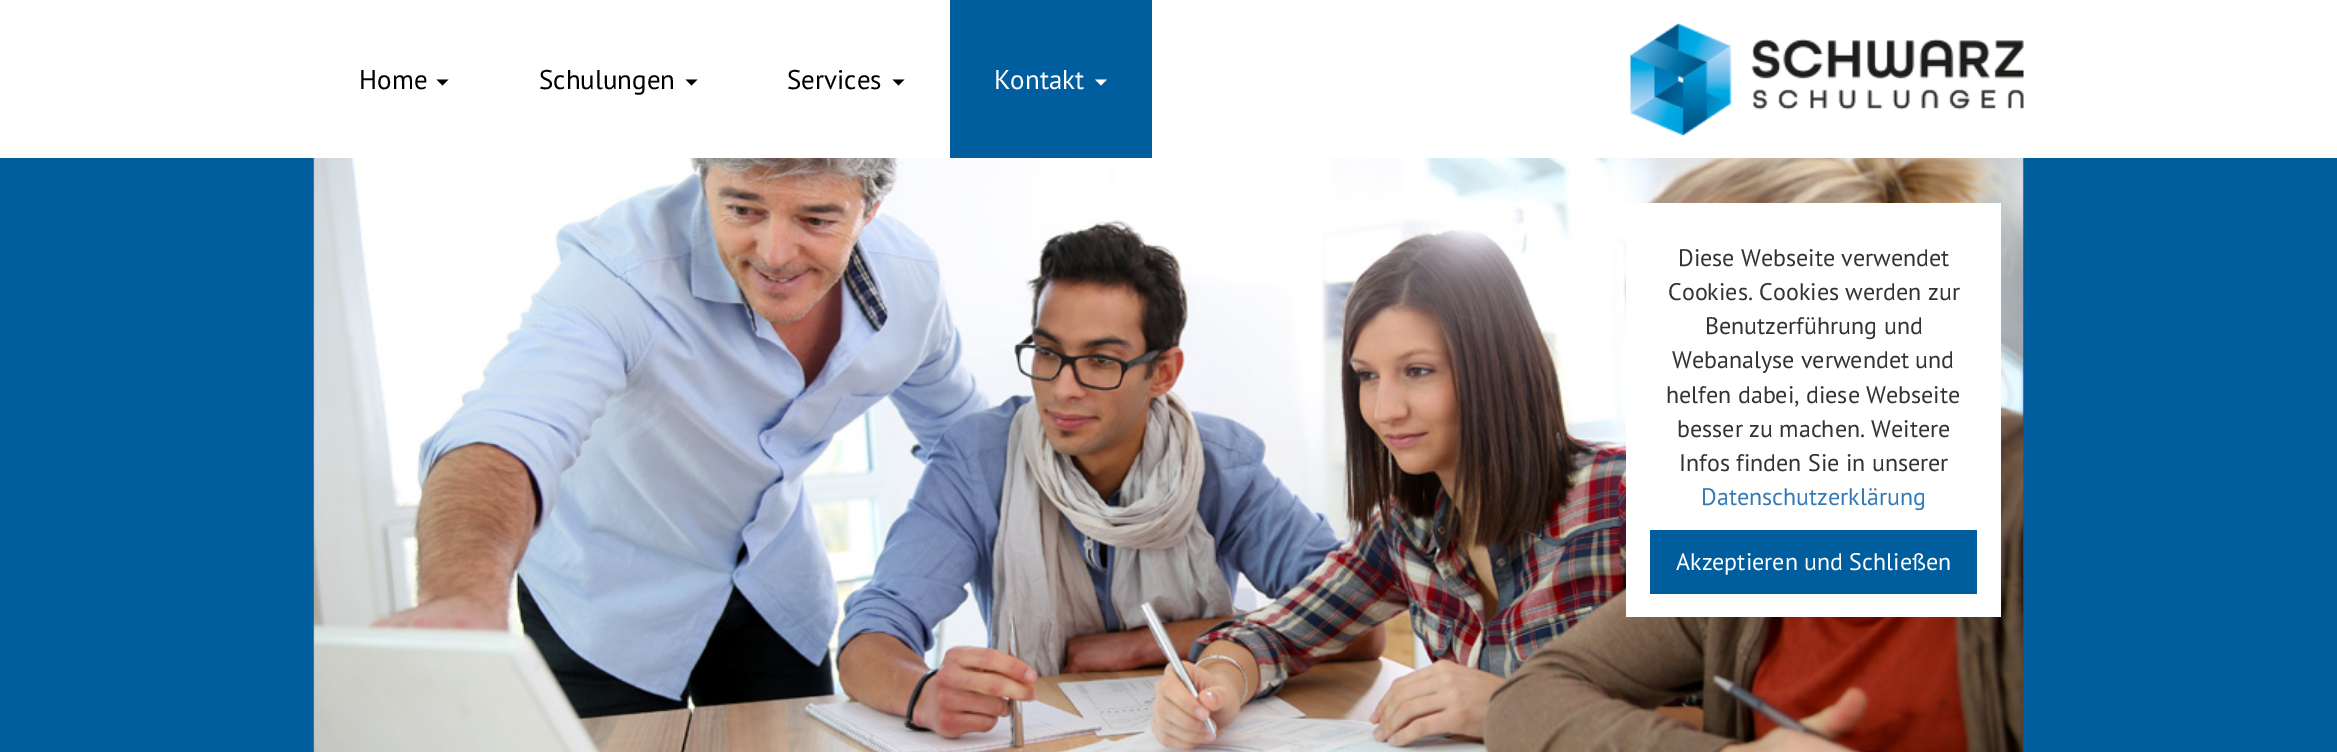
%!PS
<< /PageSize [2337 752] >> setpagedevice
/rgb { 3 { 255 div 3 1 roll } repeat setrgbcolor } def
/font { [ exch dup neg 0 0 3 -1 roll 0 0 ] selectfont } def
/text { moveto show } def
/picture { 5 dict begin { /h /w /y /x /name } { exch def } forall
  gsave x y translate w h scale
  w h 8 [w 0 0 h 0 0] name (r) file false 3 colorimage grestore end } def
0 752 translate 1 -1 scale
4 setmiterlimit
0 94 158 rgb
0 0 2337 752 rectfill
255 255 255 rgb
0 0 2337 158 rectfill
0 0 0 rgb
436.5 79.5 moveto 12 0 rlineto -6 6 rlineto closepath fill
685.5 79.5 moveto 12 0 rlineto -6 6 rlineto closepath fill
892.5 79.5 moveto 12 0 rlineto -6 6 rlineto closepath fill
0 94 158 rgb
950 0 202 158 rectfill
255 255 255 rgb
1095 79.5 moveto 12 0 rlineto -6 6 rlineto closepath fill
(img_01.rgb) 1630 23 394 113 picture
(img_02.rgb) 313 158 1711 594 picture
1626 203 375 414 rectfill
0 94 158 rgb
1650 530 327 64 rectfill
/PTSans-Regular 27 font
0 0 0 rgb
(Home) 359 89 text
(Schulungen) 539 89 text
(Services) 787 89 text
255 255 255 rgb
(Kontakt) 994 89 text
/PTSans-Regular 24 font
51 51 51 rgb
(Diese Webseite verwendet) 1678 266 text
(Cookies. Cookies werden zur) 1668 300 text
(Benutzerführung und) 1705 334 text
(Webanalyse verwendet und) 1672 368 text
(helfen dabei, diese Webseite) 1666 403 text
(besser zu machen. Weitere) 1677 437 text
(Infos finden Sie in unserer) 1679 471 text
51 122 183 rgb
(Datenschutzerklärung) 1701 505 text
255 255 255 rgb
(Akzeptieren und Schließen) 1676 570 text
showpage
